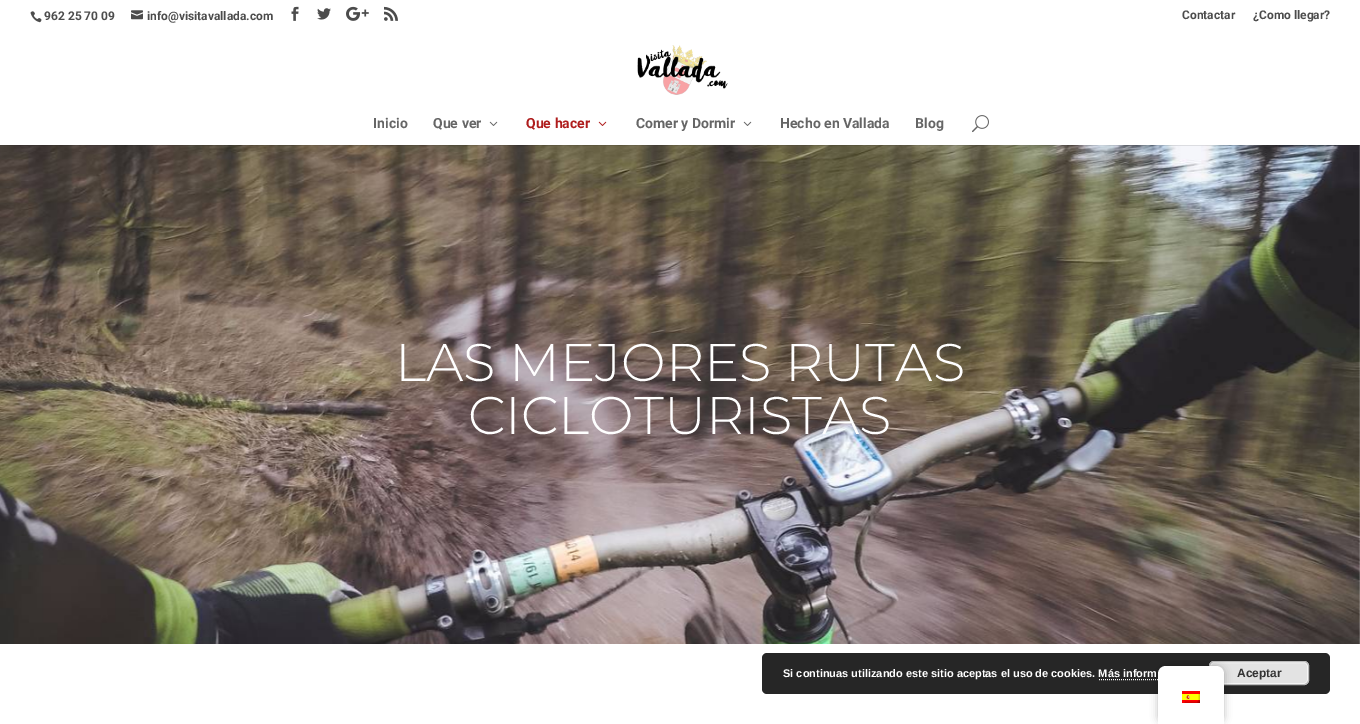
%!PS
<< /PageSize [1360 724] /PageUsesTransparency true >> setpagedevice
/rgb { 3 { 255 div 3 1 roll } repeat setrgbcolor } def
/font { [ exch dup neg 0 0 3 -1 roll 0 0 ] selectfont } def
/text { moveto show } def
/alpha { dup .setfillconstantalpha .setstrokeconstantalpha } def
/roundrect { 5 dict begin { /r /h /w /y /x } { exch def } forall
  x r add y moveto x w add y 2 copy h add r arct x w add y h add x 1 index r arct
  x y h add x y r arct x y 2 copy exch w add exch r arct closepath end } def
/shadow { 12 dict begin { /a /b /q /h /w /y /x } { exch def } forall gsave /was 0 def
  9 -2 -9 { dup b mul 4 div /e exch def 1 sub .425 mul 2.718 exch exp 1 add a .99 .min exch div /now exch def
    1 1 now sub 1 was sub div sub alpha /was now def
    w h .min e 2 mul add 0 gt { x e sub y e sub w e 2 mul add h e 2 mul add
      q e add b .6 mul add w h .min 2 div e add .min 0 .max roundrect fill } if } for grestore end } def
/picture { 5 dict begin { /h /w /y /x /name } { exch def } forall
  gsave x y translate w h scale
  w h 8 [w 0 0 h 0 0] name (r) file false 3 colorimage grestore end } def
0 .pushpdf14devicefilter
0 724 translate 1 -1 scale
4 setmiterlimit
255 255 255 rgb
0 0 1360 724 rectfill
(img_01.rgb) 30 11 12 12 picture
(img_02.rgb) 131 10 12 10 picture
(img_03.rgb) 291 6 8 15 picture
(img_04.rgb) 317 8 14 12 picture
(img_05.rgb) 346 6 23 15 picture
(img_06.rgb) 384 6 14 15 picture
(img_11.rgb) 0 145 1360 499 picture
0.1 alpha
0 0 0 rgb
0 145 1360 1 rectfill
1 alpha
(img_07.rgb) 637 45 91 50 picture
(img_08.rgb) 489 121 9 5 picture
(img_09.rgb) 598 121 9 5 picture
(img_08.rgb) 743 121 9 5 picture
(img_10.rgb) 972 115 17 18 picture
38 38 38 rgb
762 653 568 41 5 roundrect fill
227 227 227 rgb
1209 661 100 24 5 roundrect fill
246 246 246 rgb
1210.5 662.5 97 21 3.5 roundrect stroke
187 187 187 rgb
1209.5 661.5 99 23 4.5 roundrect stroke
255 255 255 rgb
[1 1] 0 setdash
1099 679.5 moveto 87 0 rlineto stroke
0 0 0 rgb
1158 666 66 58 8 4 0.25 shadow
255 255 255 rgb
1166 666 moveto 50 0 rlineto 4.5 0 8 3.5 8 8 rcurveto 0 50 rlineto -66 0 rlineto 0 -50 rlineto 0 -4.5 3.5 -8 8 -8 rcurveto closepath fill
(img_12.rgb) 1182 691 18 12 picture
/Roboto-Bold 12 font
76 76 76 rgb
(962 25 70 09) 44 20 text
(info@visitavallada.com) 147 20 text
(Contactar) 1182 19 text
(¿Como llegar?) 1253 19 text
/Roboto-Bold 14 font
102 102 102 rgb
(Inicio) 373 128 text
(Que ver) 433 128 text
175 29 29 rgb
(Que hacer) 526 128 text
102 102 102 rgb
(Comer y Dormir) 636 128 text
(Hecho en Vallada) 780 128 text
(Blog) 915 128 text
/Montserrat-Light 53 font
255 255 255 rgb
(LAS MEJORES RUTAS) 395 381 text
(CICLOTURISTAS) 468 434 text
/LiberationSans-Bold 11 font
(Si continuas utilizando este sitio aceptas el uso de cookies. Más inform) 783 677 text
/LiberationSans-Bold 12 font
51 51 51 rgb
(Aceptar) 1237 677 text
.poppdf14devicefilter showpage
